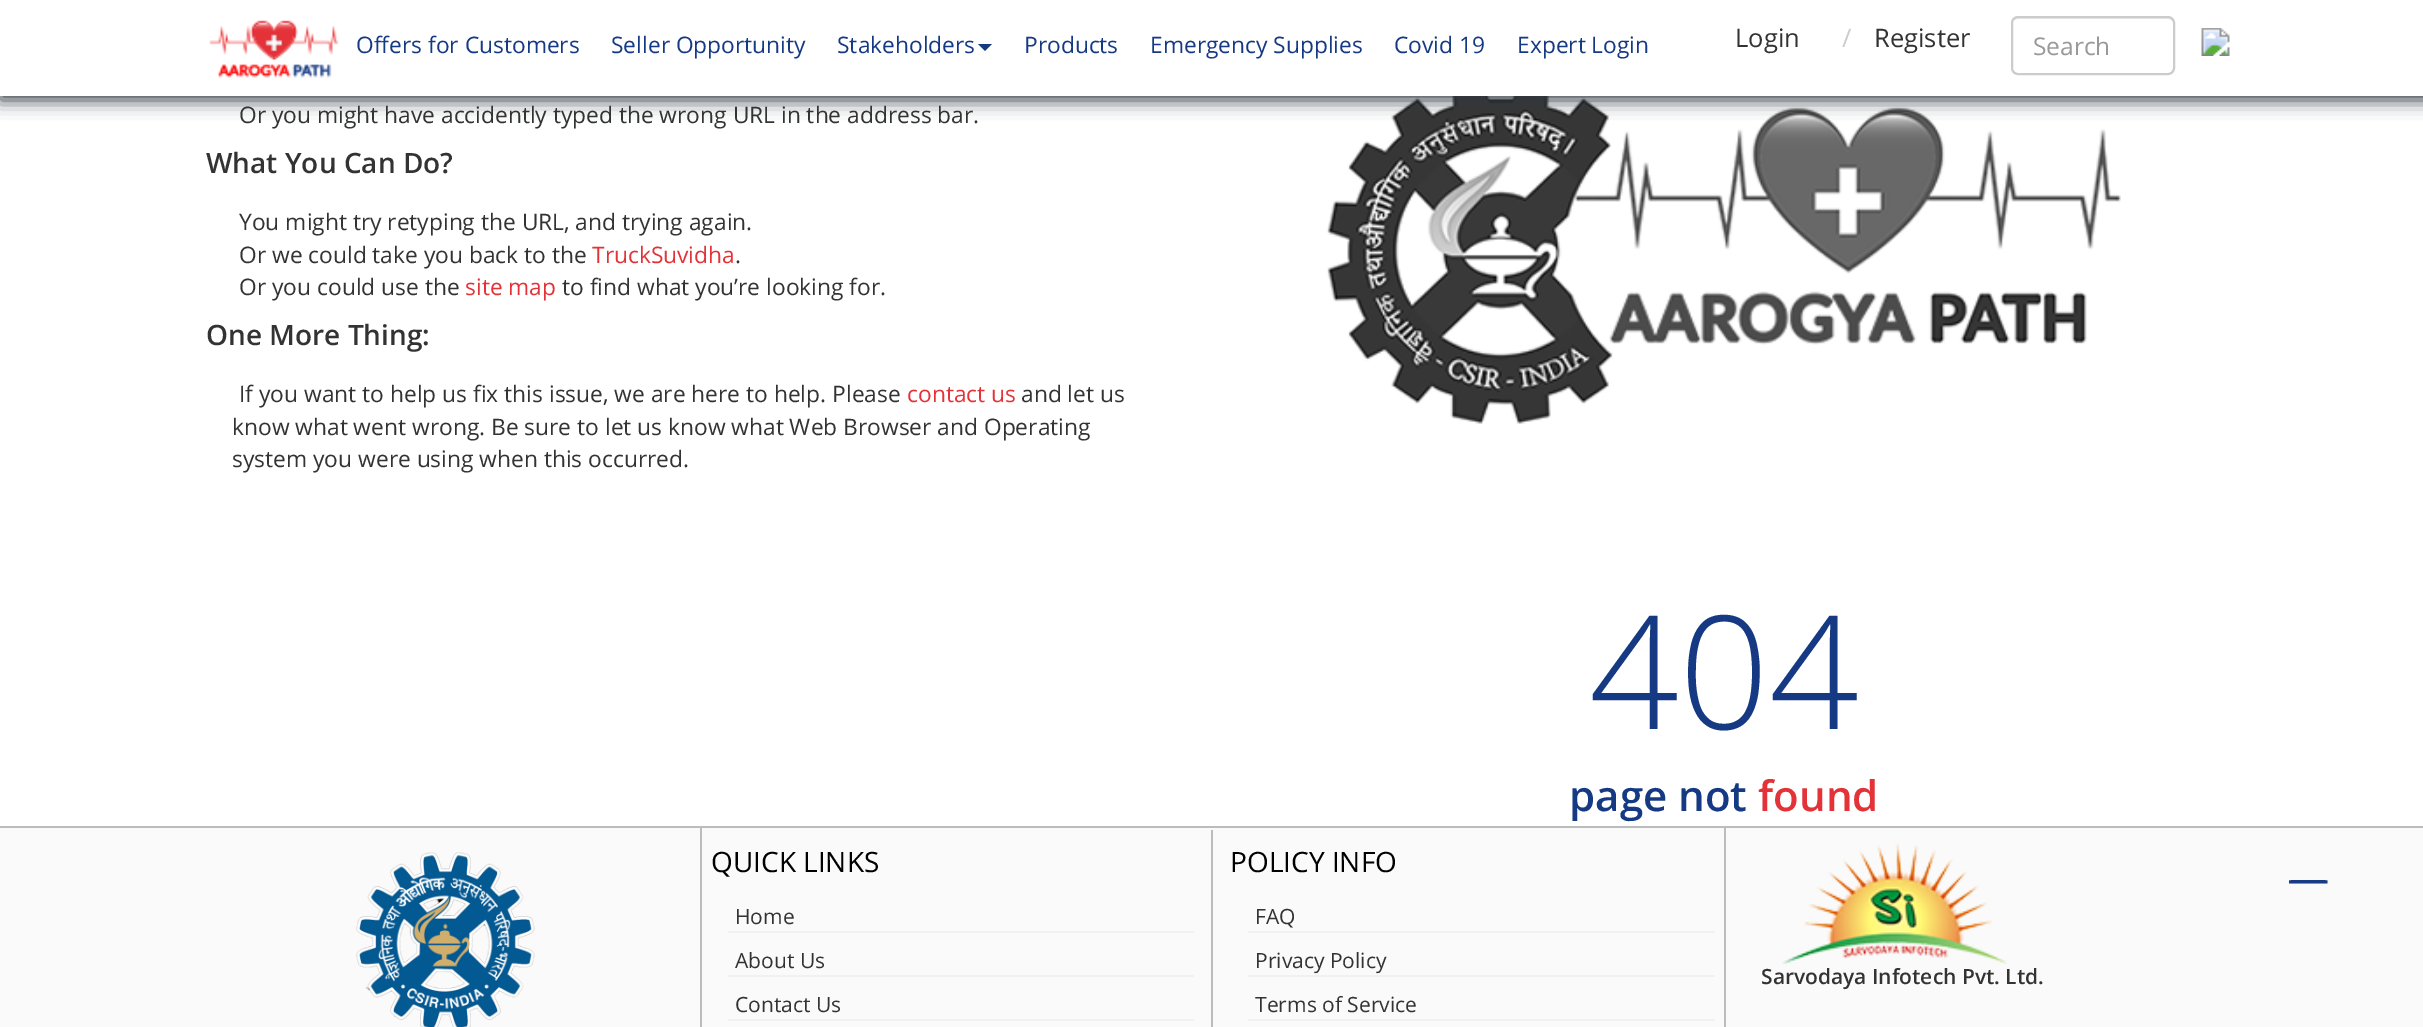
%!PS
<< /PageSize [2423 1027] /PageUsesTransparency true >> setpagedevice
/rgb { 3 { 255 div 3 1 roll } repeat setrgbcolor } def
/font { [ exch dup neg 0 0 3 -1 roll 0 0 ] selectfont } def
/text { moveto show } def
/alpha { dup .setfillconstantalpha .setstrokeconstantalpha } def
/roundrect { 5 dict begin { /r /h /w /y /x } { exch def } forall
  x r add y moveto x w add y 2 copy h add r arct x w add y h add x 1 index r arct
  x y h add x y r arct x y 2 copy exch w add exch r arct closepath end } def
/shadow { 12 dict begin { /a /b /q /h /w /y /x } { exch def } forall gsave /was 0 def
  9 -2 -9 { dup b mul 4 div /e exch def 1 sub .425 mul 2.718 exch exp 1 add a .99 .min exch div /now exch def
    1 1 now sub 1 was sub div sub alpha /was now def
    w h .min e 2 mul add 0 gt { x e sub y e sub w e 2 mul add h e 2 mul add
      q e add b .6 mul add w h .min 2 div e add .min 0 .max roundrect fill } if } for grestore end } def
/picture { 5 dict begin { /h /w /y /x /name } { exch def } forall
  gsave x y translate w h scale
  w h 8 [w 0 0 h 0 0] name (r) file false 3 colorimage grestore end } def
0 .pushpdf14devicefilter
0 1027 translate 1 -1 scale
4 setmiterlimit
255 255 255 rgb
0 0 2423 1027 rectfill
(img_03.rgb) 1326 96 795 328 picture
47 55 63 rgb
0 4 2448 96 0 9 1 shadow
255 255 255 rgb
0 0 2423 96 rectfill
(img_01.rgb) 209 20 130 58 picture
21 57 131 rgb
978 44 moveto 14 0 rlineto -7 7 rlineto closepath fill
236 236 236 rgb
2018 19 moveto 150 0 rlineto 3 0 6 3 6 5 rcurveto 0 -1 rlineto 0 -3 -2 -5 -5 -5 rcurveto -151 0 rlineto -2 0 -4 1 -5 3 rcurveto 1 -1 3 -2 5 -2 rcurveto closepath fill
204 204 204 rgb
2 setlinewidth
2012 17 162 57 6 roundrect stroke
(img_02.rgb) 2201 28 29 28 picture
250 250 250 rgb
0 828 2423 199 rectfill
188 188 188 rgb
0 826 2423 2 rectfill
(img_04.rgb) 356 852 179 175 picture
700 828 2 199 rectfill
1211 830 2 197 rectfill
241 241 241 rgb
728 931 466 2 rectfill
728 975 466 2 rectfill
728 1019 466 2 rectfill
1248 931 467 2 rectfill
1248 975 467 2 rectfill
1248 1019 467 2 rectfill
188 188 188 rgb
1724 828 2 199 rectfill
(img_05.rgb) 1782 843 226 121 picture
23 59 132 rgb
2293 880 moveto 30.5 0 rlineto 4 0.5 rlineto 0 2 rlineto 0 1 0 1 -0.5 1 rcurveto -36.5 0 rlineto -1.5 0 rlineto 0 -3 rlineto closepath fill
/OpenSans-Regular 25.5 font
51 51 51 rgb
(Login) 1735 47 text
204 204 204 rgb
(/) 1842 47 text
51 51 51 rgb
(Register) 1874 47 text
/OpenSans-Regular 22.75 font
21 57 131 rgb
(Offers for Customers) 356 53 text
(Seller Opportunity) 611 53 text
(Stakeholders) 837 53 text
(Products) 1024 53 text
(Emergency Supplies) 1150 53 text
(Covid 19) 1394 53 text
(Expert Login) 1517 53 text
/OpenSans-Regular 24.5 font
153 153 153 rgb
(Search) 2033 55 text
/OpenSans-Regular 22.75 font
51 51 51 rgb
(Or you might have accidently typed the wrong URL in the address bar.) 239 123 text
/OpenSans-SemiBold 28 font
(What You Can Do?) 206 173 text
/OpenSans-Regular 22.75 font
(You might try retyping the URL, and trying again.) 239 230 text
(Or we could take you back to the) 239 263 text
227 50 56 rgb
(TruckSuvidha) 592 263 text
51 51 51 rgb
(.) 735 263 text
(Or you could use the) 239 295 text
227 50 56 rgb
(site map) 465 295 text
51 51 51 rgb
(to find what you’re looking for.) 562 295 text
/OpenSans-SemiBold 28 font
(One More Thing:) 206 345 text
/OpenSans-Regular 22.75 font
(If you want to help us fix this issue, we are here to help. Please) 239 402 text
227 50 56 rgb
(contact us) 907 402 text
51 51 51 rgb
(and let us) 1021 402 text
(know what went wrong. Be sure to let us know what Web Browser and Operating) 232 435 text
(system you were using when this occurred.) 232 467 text
/OpenSans-Light 158 font
21 57 131 rgb
(404) 1589 729 text
/OpenSans-SemiBold 42 font
(page not) 1569 811 text
227 50 56 rgb
(found) 1758 811 text
/OpenSans-Regular 28 font
0 0 0 rgb
(QUICK LINKS) 711 872 text
/OpenSans-Regular 21 font
51 51 51 rgb
(Home) 735 924 text
(About Us) 735 968 text
(Contact Us) 735 1012 text
/OpenSans-Regular 28 font
0 0 0 rgb
(POLICY INFO) 1230 872 text
/OpenSans-Regular 21 font
51 51 51 rgb
(FAQ) 1255 924 text
(Privacy Policy) 1255 968 text
(Terms of Service) 1255 1012 text
/OpenSans-SemiBold 21 font
(Sarvodaya Infotech Pvt. Ltd.) 1761 984 text
.poppdf14devicefilter showpage
